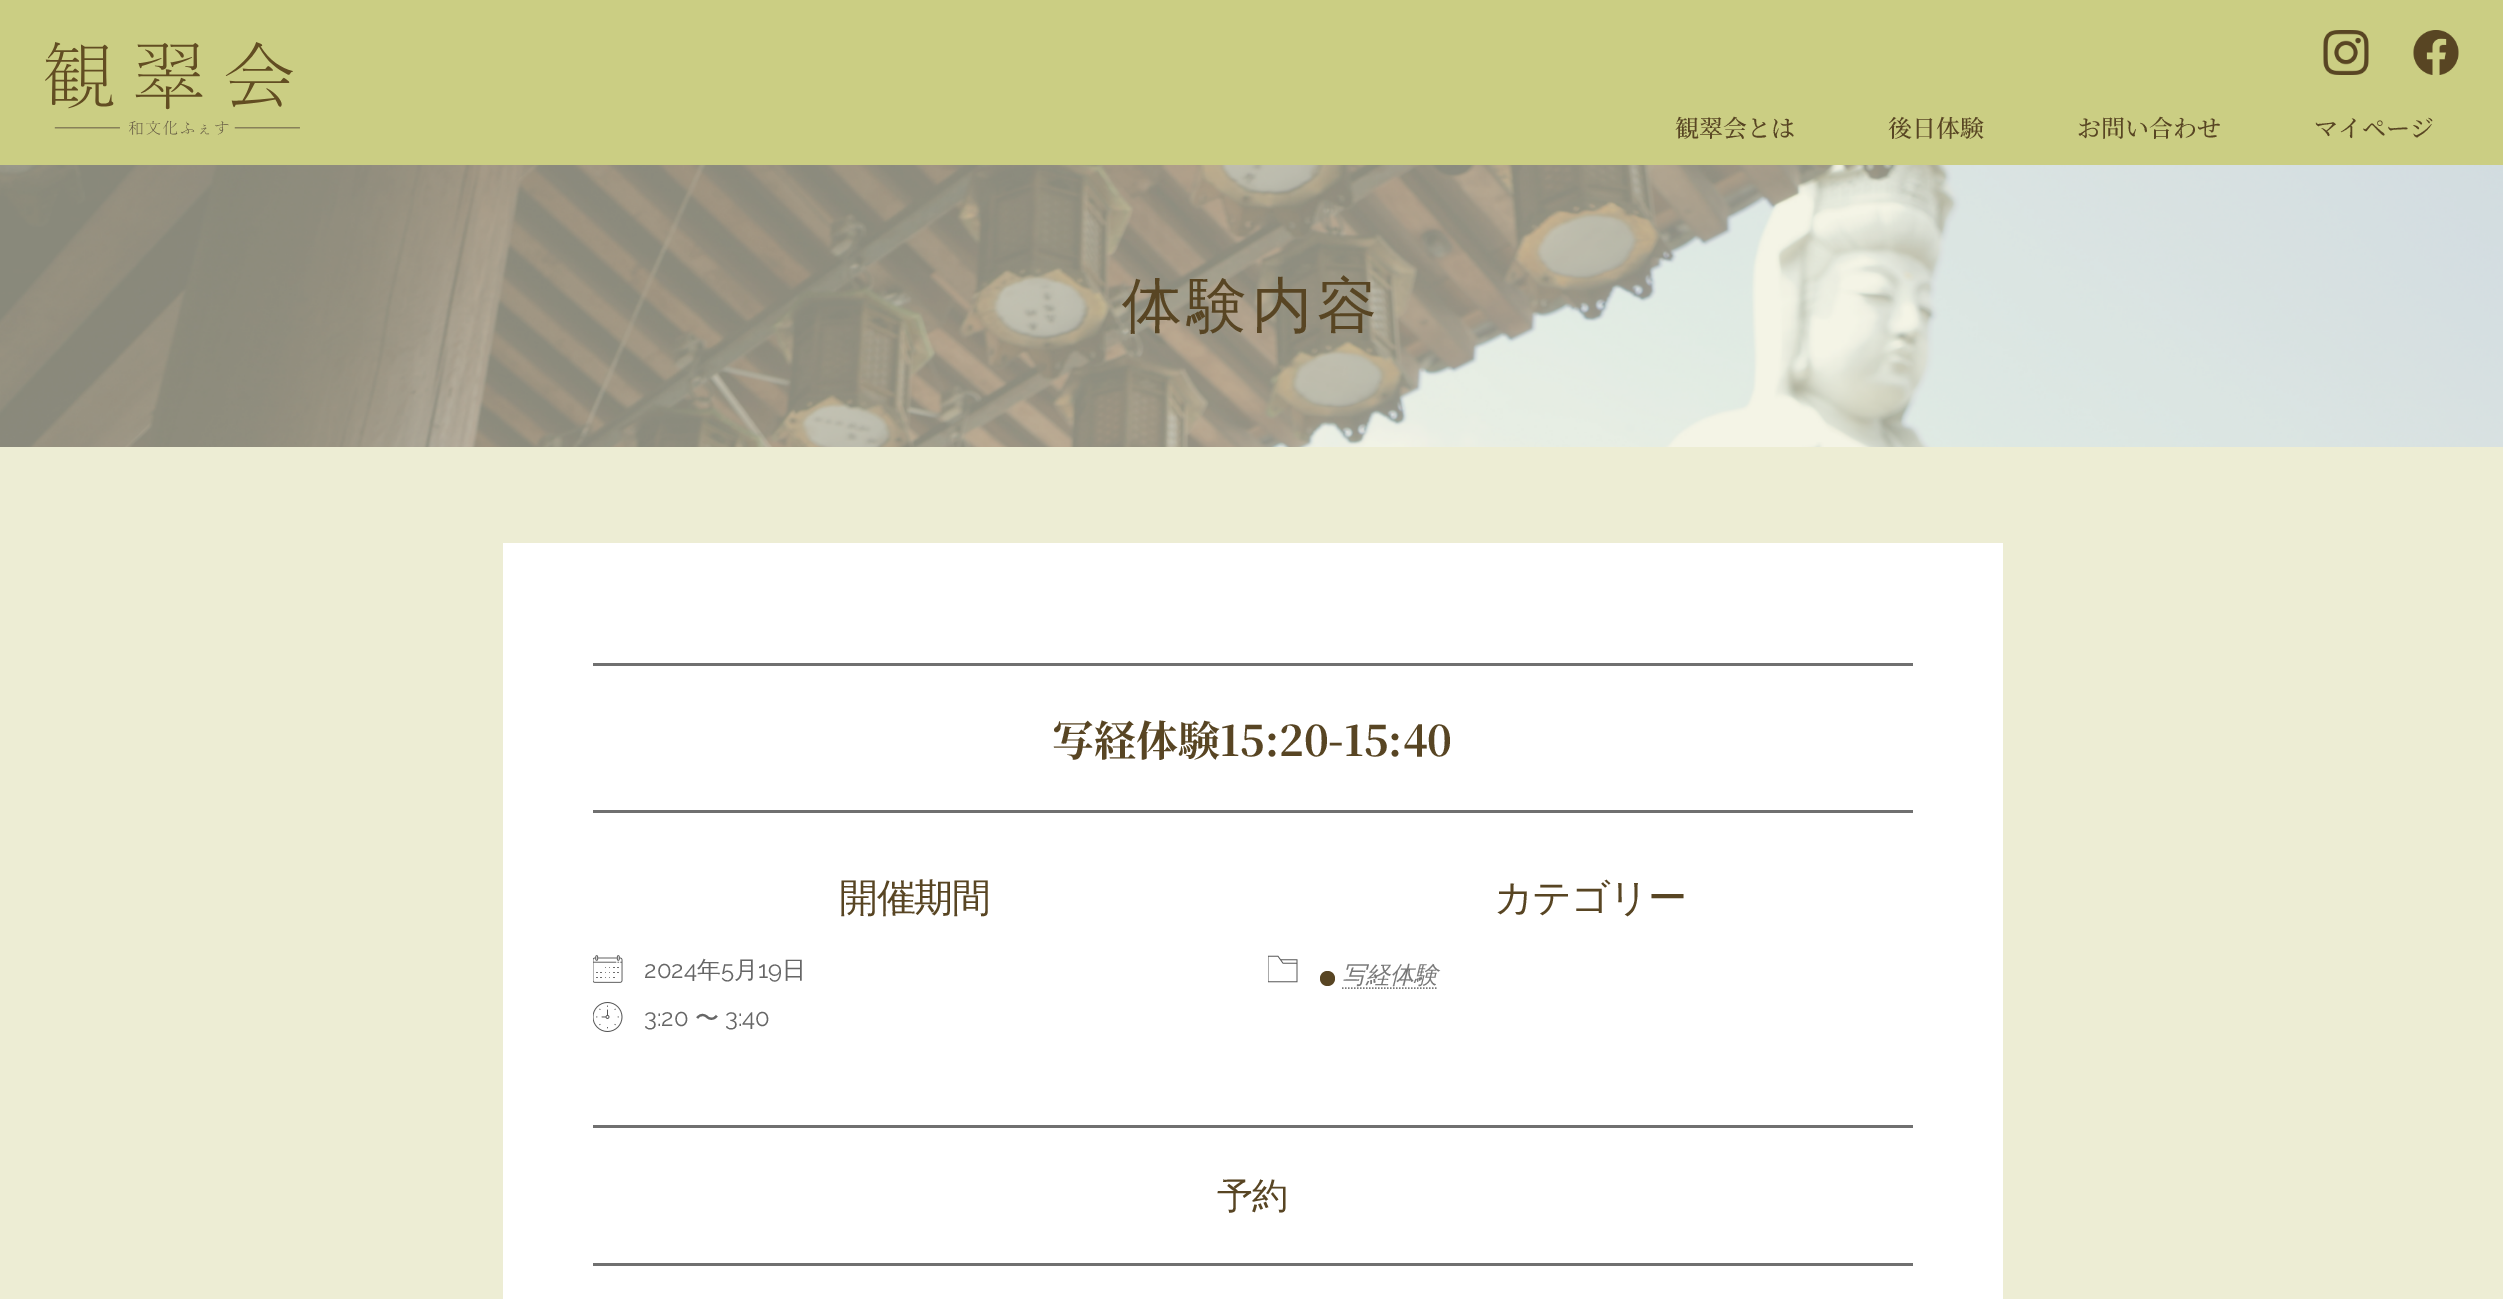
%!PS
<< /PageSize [2503 1299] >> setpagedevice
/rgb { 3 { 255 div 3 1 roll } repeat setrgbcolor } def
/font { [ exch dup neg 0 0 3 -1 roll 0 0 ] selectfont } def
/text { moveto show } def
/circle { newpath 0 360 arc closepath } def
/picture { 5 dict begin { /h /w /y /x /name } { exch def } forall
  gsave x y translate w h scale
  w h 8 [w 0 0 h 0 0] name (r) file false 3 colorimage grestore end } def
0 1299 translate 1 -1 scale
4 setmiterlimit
237 237 212 rgb
0 0 2503 1299 rectfill
203 206 131 rgb
0 0 2503 165 rectfill
(img_01.rgb) 45 42 255 93 picture
(img_02.rgb) 2323 30 46 45 picture
(img_03.rgb) 2413 30 46 45 picture
(img_04.rgb) 0 165 2503 282 picture
255 255 255 rgb
503 543 1500 756 rectfill
112 112 112 rgb
593 663 1320 3 rectfill
593 810 1320 3 rectfill
(img_05.rgb) 593 955 30 28 picture
(img_06.rgb) 593 1002 30 30 picture
(img_07.rgb) 1268 955 30 28 picture
88 69 35 rgb
1327.5 978.5 7.5 circle fill
120 120 120 rgb
1.5 setlinewidth
[1.5 1.5] 0 setdash
1342 988 moveto 96 0 rlineto stroke
112 112 112 rgb
593 1125 1320 3 rectfill
593 1263 1320 3 rectfill
/NotoSerifJP-Medium 24 font
88 69 35 rgb
(観翠会とは) 1675 137 text
(後日体験) 1888 137 text
(お問い合わせ) 2077 137 text
(マイページ) 2314 137 text
/WenQuanYiZenHei-Medium 60 font
1122 326 moveto 5 0 (体験内容) ashow
/NotoSerifJP-Bold 42 font
(写経体験15:20-15:40) 1052 756 text
/WenQuanYiZenHei-Medium 39 font
839 911 moveto -1.5 0 (開催期間) ashow
/Raleway-Regular 24 font
102 102 102 rgb
(2024) 644 978 text
/WenQuanYiZenHei-Medium 24 font
(年) 697 978 text
/Raleway-Regular 24 font
(5) 721 978 text
/WenQuanYiZenHei-Medium 24 font
(月) 734 978 text
/Raleway-Regular 24 font
(19) 758 978 text
/WenQuanYiZenHei-Medium 24 font
(日) 782 978 text
/Raleway-Regular 24 font
(3:20) 644 1026 text
/WenQuanYiZenHei-Medium 24 font
(〜) 695 1026 text
/Raleway-Regular 24 font
(3:40) 725 1026 text
/WenQuanYiZenHei-Medium 39 font
88 69 35 rgb
1494 911 moveto -1.5 0 (カテゴリー) ashow
/WenQuanYiZenHei-MediumItalic 24 font
120 120 120 rgb
(写経体験) 1342 983 text
/WenQuanYiZenHei-Medium 36 font
88 69 35 rgb
1217 1208 moveto -1.5 0 (予約) ashow
showpage
